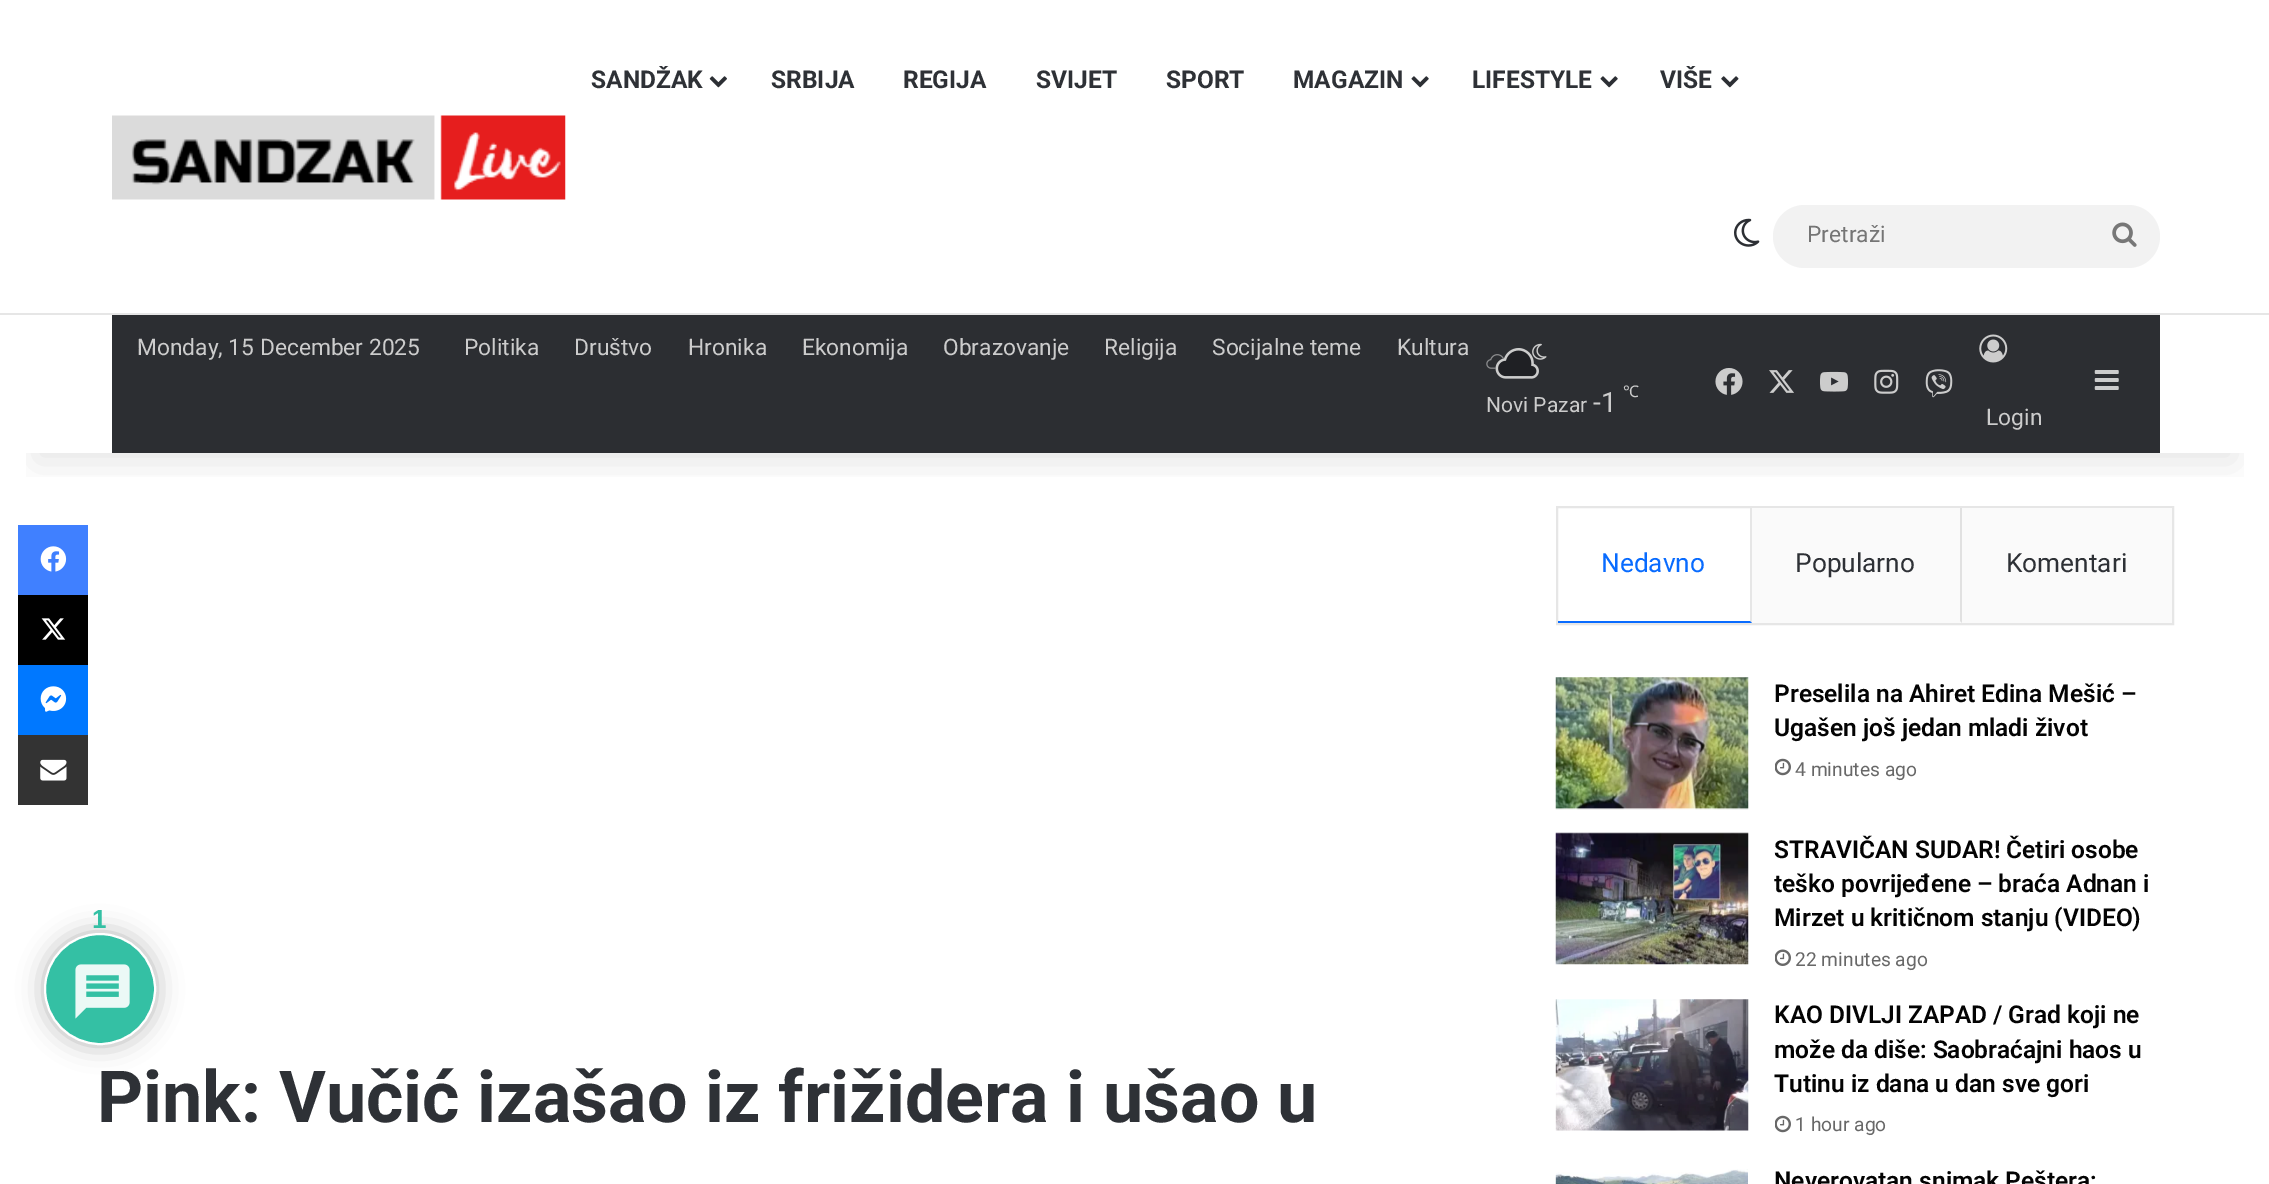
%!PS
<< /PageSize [2269 1184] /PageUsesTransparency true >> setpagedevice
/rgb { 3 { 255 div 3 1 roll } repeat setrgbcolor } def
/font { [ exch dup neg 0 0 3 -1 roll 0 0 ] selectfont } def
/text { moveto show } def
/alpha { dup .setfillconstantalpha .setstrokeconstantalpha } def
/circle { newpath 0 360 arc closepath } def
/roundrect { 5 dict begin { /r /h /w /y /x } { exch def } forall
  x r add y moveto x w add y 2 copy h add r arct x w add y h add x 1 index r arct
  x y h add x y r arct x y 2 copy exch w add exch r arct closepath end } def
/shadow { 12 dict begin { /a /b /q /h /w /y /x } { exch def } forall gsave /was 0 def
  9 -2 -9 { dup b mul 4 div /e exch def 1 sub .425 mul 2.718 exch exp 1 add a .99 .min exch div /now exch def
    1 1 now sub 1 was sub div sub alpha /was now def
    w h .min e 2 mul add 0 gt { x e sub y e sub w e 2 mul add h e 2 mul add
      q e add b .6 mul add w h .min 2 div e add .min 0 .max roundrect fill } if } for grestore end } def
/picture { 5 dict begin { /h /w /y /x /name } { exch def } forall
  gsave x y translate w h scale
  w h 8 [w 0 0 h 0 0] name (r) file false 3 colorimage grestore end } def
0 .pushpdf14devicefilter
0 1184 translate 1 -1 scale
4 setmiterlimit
255 255 255 rgb
0 0 2269 1184 rectfill
179 179 179 rgb
44 933 112 112 56 13 1 shadow
52 192 164 rgb
100 989 55 circle gsave fill grestore
255 255 255 rgb
2 setlinewidth
stroke
(img_01.rgb) 75 964 55 55 picture
230 230 230 rgb
1557 507 616 117 rectstroke
1752 508 moveto 0 115 rlineto -2 -2 rlineto 0 -113 rlineto closepath fill
250 250 250 rgb
1752 508 420 115 rectfill
225 225 225 rgb
1962 508 moveto 0 115 rlineto -2 -2 rlineto 0 -113 rlineto closepath fill
gsave
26 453 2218 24 rectclip
0 0 0 rgb
35 79 2200 383 0 17.5 0.1 shadow
grestore
230 230 230 rgb
0 313 2269 2 rectfill
(img_02.rgb) 112 115 454 85 picture
(img_03.rgb) 709 76 18 12 picture
(img_04.rgb) 1411 76 18 12 picture
(img_04.rgb) 1600 76 18 12 picture
(img_05.rgb) 1721 76 18 12 picture
(img_06.rgb) 1734 218 26 29 picture
242 242 242 rgb
1773 205 387 63 31.5 roundrect fill
(img_07.rgb) 2112 222 25 25 picture
44 46 50 rgb
112 315 2048 138 rectfill
(img_08.rgb) 1715 368 28 27 picture
(img_09.rgb) 1769 370 25 23 picture
(img_10.rgb) 1820 371 28 21 picture
(img_11.rgb) 1874 369 25 25 picture
(img_12.rgb) 1925 369 28 29 picture
(img_13.rgb) 2094 370 25 20 picture
(img_15.rgb) 1532 343 15 17 picture
(img_17.rgb) 1486 354 19 15 picture
(img_14.rgb) 1495 348 44 31 picture
(img_16.rgb) 1495 348 44 31 picture
(img_18.rgb) 1979 334 29 29 picture
64 128 255 rgb
18 525 70 70 rectfill
(img_19.rgb) 40 546 27 26 picture
0 0 0 rgb
18 595 70 70 rectfill
(img_20.rgb) 41 618 25 22 picture
0 120 255 rgb
18 665 70 70 rectfill
(img_21.rgb) 40 686 27 26 picture
51 51 51 rgb
18 735 70 70 rectfill
(img_22.rgb) 40 759 27 22 picture
8 107 255 rgb
1752 623 moveto -194 0 rlineto 0 -2 rlineto 192 0 rlineto closepath fill
(img_23.rgb) 1555 677 194 133 picture
(img_24.rgb) 1775 758 16 18 picture
(img_25.rgb) 1555 832 194 133 picture
(img_26.rgb) 1775 949 16 17 picture
(img_27.rgb) 1555 999 194 132 picture
(img_24.rgb) 1775 1115 16 18 picture
(img_28.rgb) 1555 1169 193 15 picture
/LiberationSans-Bold 26.25 font
52 192 164 rgb
(1) 92 928 text
/Roboto-Bold 24.5 font
46 49 54 rgb
(SANDŽAK) 591 88 text
(SRBIJA) 771 88 text
(REGIJA) 903 88 text
(SVIJET) 1036 88 text
(SPORT) 1166 88 text
(MAGAZIN) 1293 88 text
(LIFESTYLE) 1472 88 text
(VIŠE) 1660 88 text
/Roboto-Regular 22.75 font
117 117 117 rgb
(Pretraži) 1807 242 text
204 204 204 rgb
(Monday, 15 December 2025) 137 355 text
(Politika) 464 355 text
(Društvo) 574 355 text
(Hronika) 688 355 text
(Ekonomija) 802 355 text
(Obrazovanje) 943 355 text
(Religija) 1104 355 text
(Socijalne teme) 1212 355 text
(Kultura) 1397 355 text
/Roboto-Regular 21 font
(Novi Pazar) 1486 412 text
/Roboto-Regular 28 font
(-1) 1593 412 text
/NotoSans-Regular 16 font
(℃) 1623 397 text
/Roboto-Regular 22.75 font
(Login) 1986 425 text
/Roboto-Bold 71.75 font
46 49 54 rgb
(Pink: Vučić izašao iz frižidera i ušao u) 97 1122 text
/Roboto-Regular 26.25 font
8 107 255 rgb
(Nedavno) 1601 572 text
46 49 54 rgb
(Popularno) 1795 572 text
(Komentari) 2006 572 text
/Roboto-SemiBold 24.5 font
3 3 3 rgb
(Preselila na Ahiret Edina Mešić –) 1774 702 text
(Ugašen još jedan mladi život) 1774 736 text
/Roboto-Regular 19.25 font
104 104 104 rgb
(4 minutes ago) 1795 776 text
/Roboto-SemiBold 24.5 font
3 3 3 rgb
(STRAVIČAN SUDAR! Četiri osobe) 1774 858 text
(teško povrijeđene – braća Adnan i) 1774 892 text
(Mirzet u kritičnom stanju \(VIDEO\)) 1774 926 text
/Roboto-Regular 19.25 font
104 104 104 rgb
(22 minutes ago) 1795 966 text
/Roboto-SemiBold 24.5 font
3 3 3 rgb
(KAO DIVLJI ZAPAD / Grad koji ne) 1774 1023 text
(može da diše: Saobraćajni haos u) 1774 1058 text
(Tutinu iz dana u dan sve gori) 1774 1092 text
/Roboto-Regular 19.25 font
104 104 104 rgb
(1 hour ago) 1795 1131 text
/Roboto-SemiBold 24.5 font
3 3 3 rgb
(Neverovatan snimak Peštera:) 1774 1189 text
.poppdf14devicefilter showpage
